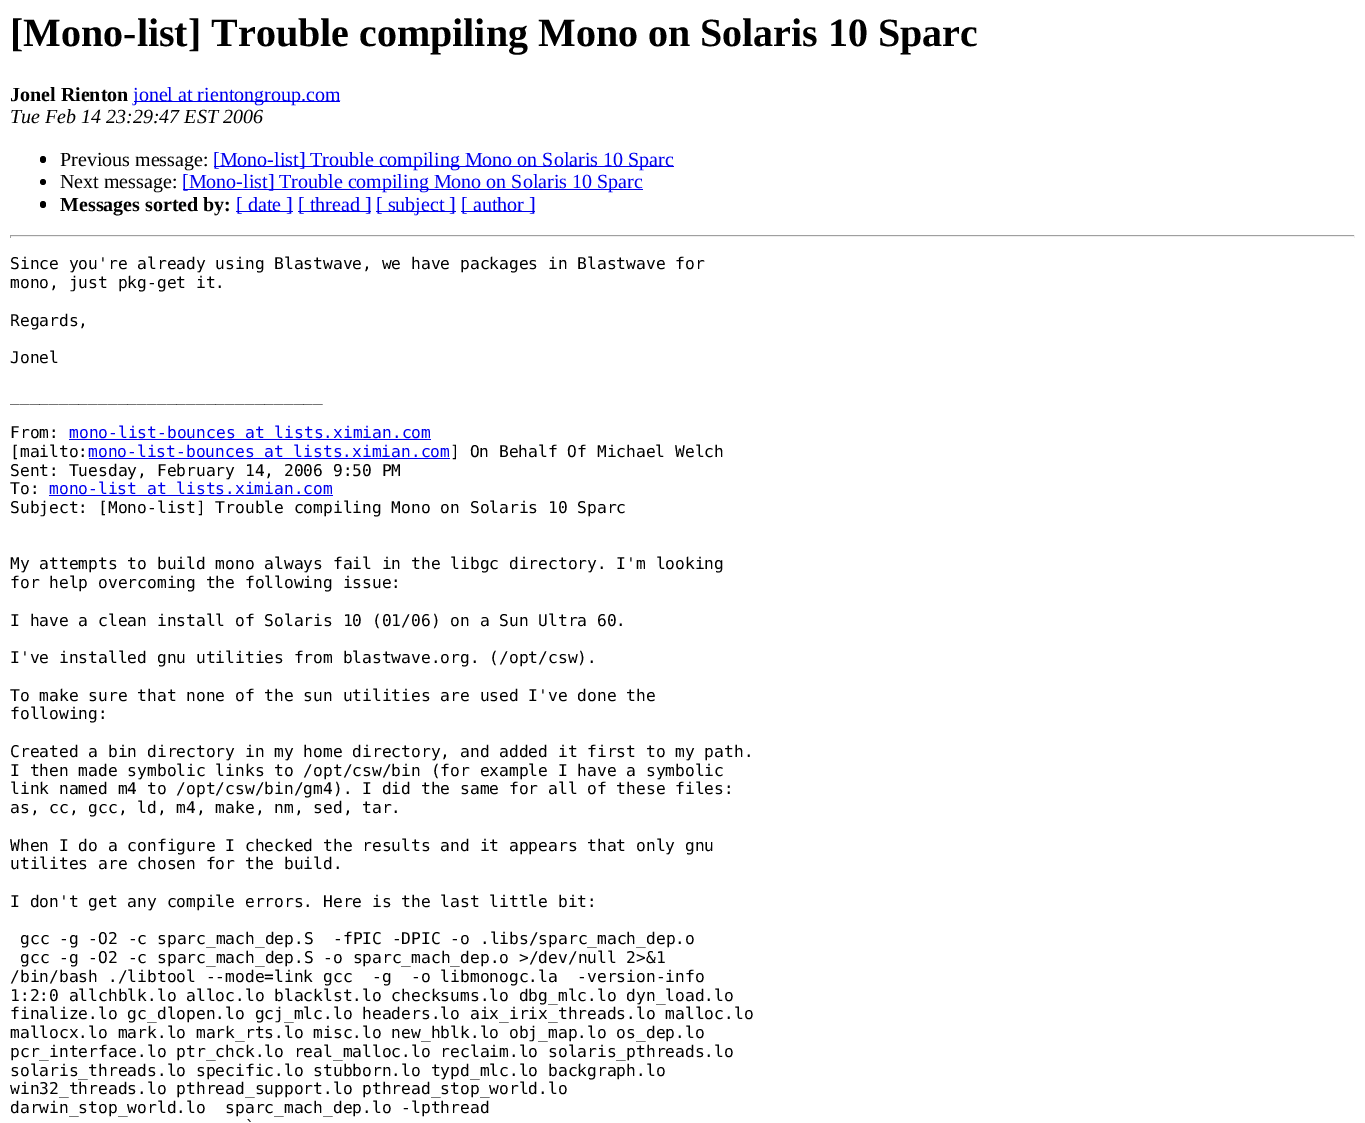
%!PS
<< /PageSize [1365 1123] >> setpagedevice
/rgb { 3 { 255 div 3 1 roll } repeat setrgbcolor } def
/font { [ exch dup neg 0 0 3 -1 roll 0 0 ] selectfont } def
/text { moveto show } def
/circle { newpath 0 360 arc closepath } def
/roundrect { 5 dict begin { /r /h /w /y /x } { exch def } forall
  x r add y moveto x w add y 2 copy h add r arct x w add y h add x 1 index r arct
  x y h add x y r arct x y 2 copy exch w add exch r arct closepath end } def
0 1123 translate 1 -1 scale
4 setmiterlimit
255 255 255 rgb
0 0 1365 1123 rectfill
0 0 238 rgb
134 101 206 1 rectfill
0 0 0 rgb
40 156 6 7 3 roundrect fill
0 0 238 rgb
214 166 460 1 rectfill
0 0 0 rgb
43 182 3 circle fill
0 0 238 rgb
183 189 460 1 rectfill
0 0 0 rgb
40 201 6 7 3 roundrect fill
0 0 238 rgb
236 211 57 1 rectfill
298 211 73 1 rectfill
376 211 80 1 rectfill
461 211 74 1 rectfill
159 159 159 rgb
10 235 1345 1 rectfill
238 238 238 rgb
1354 235 1 3 rectfill
10 236 1345 1 rectfill
159 159 159 rgb
10 235 1 3 rectfill
0 0 238 rgb
69 439 362 1 rectfill
89 458 361 1 rectfill
49 495 284 1 rectfill
/LiberationSerif-Bold 40 font
0 0 0 rgb
([Mono-list] Trouble compiling Mono on Solaris 10 Sparc) 10 46 text
/LiberationSerif-Bold 20 font
(Jonel Rienton) 10 101 text
/LiberationSerif-Regular 20 font
0 0 238 rgb
(jonel at rientongroup.com) 133 101 text
/LiberationSerif-Italic 20 font
0 0 0 rgb
(Tue Feb 14 23:29:47 EST 2006) 10 123 text
/LiberationSerif-Regular 20 font
(Previous message:) 60 166 text
0 0 238 rgb
([Mono-list] Trouble compiling Mono on Solaris 10 Sparc) 213 166 text
0 0 0 rgb
(Next message:) 60 188 text
0 0 238 rgb
([Mono-list] Trouble compiling Mono on Solaris 10 Sparc) 182 188 text
/LiberationSerif-Bold 20 font
0 0 0 rgb
(Messages sorted by:) 60 211 text
/LiberationSerif-Regular 20 font
0 0 238 rgb
([ date ]) 236 211 text
([ thread ]) 298 211 text
([ subject ]) 376 211 text
([ author ]) 461 211 text
/DejaVuSansMono-Regular 16.25 font
0 0 0 rgb
(Since you're already using Blastwave, we have packages in Blastwave for) 10 269 text
(mono, just pkg-get it.) 10 288 text
(Regards,) 10 326 text
(Jonel) 10 363 text
(________________________________) 10 401 text
(From:) 10 438 text
0 0 238 rgb
(mono-list-bounces at lists.ximian.com) 69 438 text
0 0 0 rgb
([mailto:) 10 457 text
0 0 238 rgb
(mono-list-bounces at lists.ximian.com) 88 457 text
0 0 0 rgb
(] On Behalf Of Michael Welch) 450 457 text
(Sent: Tuesday, February 14, 2006 9:50 PM) 10 476 text
(To:) 10 494 text
0 0 238 rgb
(mono-list at lists.ximian.com) 49 494 text
0 0 0 rgb
(Subject: [Mono-list] Trouble compiling Mono on Solaris 10 Sparc) 10 513 text
(My attempts to build mono always fail in the libgc directory. I'm looking) 10 569 text
(for help overcoming the following issue:) 10 588 text
(I have a clean install of Solaris 10 \(01/06\) on a Sun Ultra 60.) 10 626 text
(I've installed gnu utilities from blastwave.org. \(/opt/csw\).) 10 663 text
(To make sure that none of the sun utilities are used I've done the) 10 701 text
(following:) 10 719 text
(Created a bin directory in my home directory, and added it first to my path.) 10 757 text
(I then made symbolic links to /opt/csw/bin \(for example I have a symbolic) 10 776 text
(link named m4 to /opt/csw/bin/gm4\). I did the same for all of these files:) 10 794 text
(as, cc, gcc, ld, m4, make, nm, sed, tar.) 10 813 text
(When I do a configure I checked the results and it appears that only gnu) 10 851 text
(utilites are chosen for the build.) 10 869 text
(I don't get any compile errors. Here is the last little bit:) 10 907 text
(gcc -g -O2 -c sparc_mach_dep.S  -fPIC -DPIC -o .libs/sparc_mach_dep.o) 20 944 text
(gcc -g -O2 -c sparc_mach_dep.S -o sparc_mach_dep.o >/dev/null 2>&1) 20 963 text
(/bin/bash ./libtool --mode=link gcc  -g  -o libmonogc.la  -version-info) 10 982 text
(1:2:0 allchblk.lo alloc.lo blacklst.lo checksums.lo dbg_mlc.lo dyn_load.lo) 10 1001 text
(finalize.lo gc_dlopen.lo gcj_mlc.lo headers.lo aix_irix_threads.lo malloc.lo) 10 1019 text
(mallocx.lo mark.lo mark_rts.lo misc.lo new_hblk.lo obj_map.lo os_dep.lo) 10 1038 text
(pcr_interface.lo ptr_chck.lo real_malloc.lo reclaim.lo solaris_pthreads.lo) 10 1057 text
(solaris_threads.lo specific.lo stubborn.lo typd_mlc.lo backgraph.lo) 10 1076 text
(win32_threads.lo pthread_support.lo pthread_stop_world.lo) 10 1094 text
(darwin_stop_world.lo  sparc_mach_dep.lo -lpthread) 10 1113 text
(`) 245 1132 text
showpage
